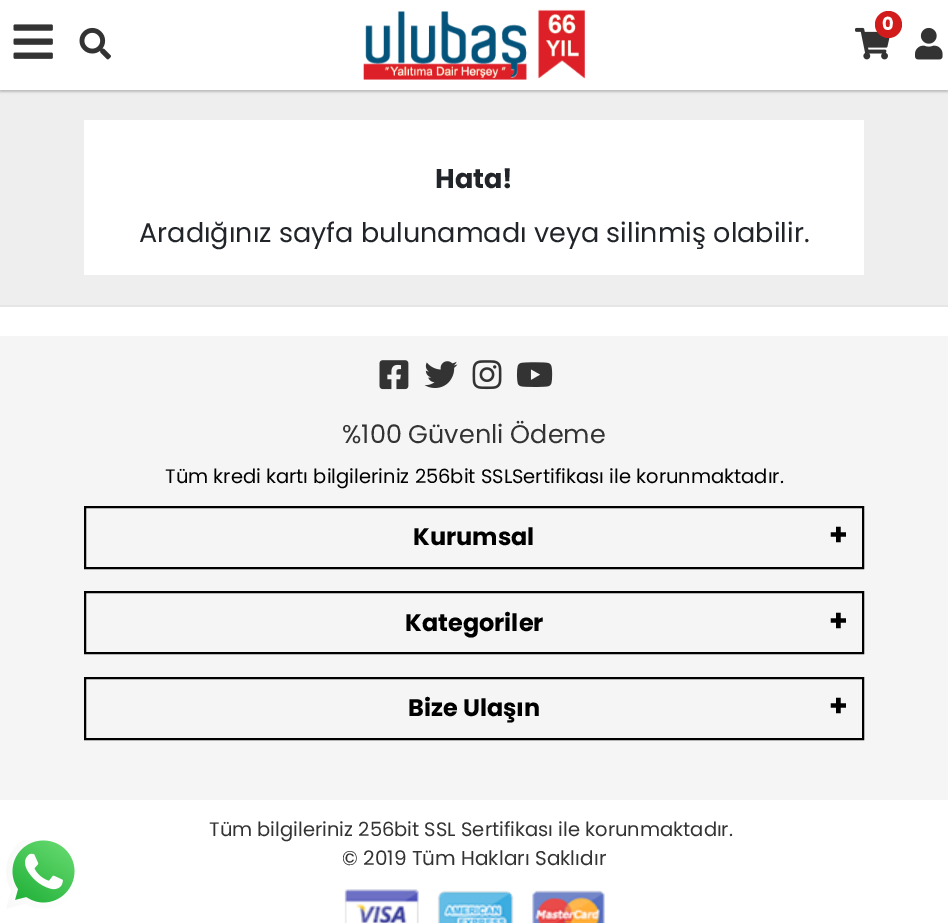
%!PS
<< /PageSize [948 923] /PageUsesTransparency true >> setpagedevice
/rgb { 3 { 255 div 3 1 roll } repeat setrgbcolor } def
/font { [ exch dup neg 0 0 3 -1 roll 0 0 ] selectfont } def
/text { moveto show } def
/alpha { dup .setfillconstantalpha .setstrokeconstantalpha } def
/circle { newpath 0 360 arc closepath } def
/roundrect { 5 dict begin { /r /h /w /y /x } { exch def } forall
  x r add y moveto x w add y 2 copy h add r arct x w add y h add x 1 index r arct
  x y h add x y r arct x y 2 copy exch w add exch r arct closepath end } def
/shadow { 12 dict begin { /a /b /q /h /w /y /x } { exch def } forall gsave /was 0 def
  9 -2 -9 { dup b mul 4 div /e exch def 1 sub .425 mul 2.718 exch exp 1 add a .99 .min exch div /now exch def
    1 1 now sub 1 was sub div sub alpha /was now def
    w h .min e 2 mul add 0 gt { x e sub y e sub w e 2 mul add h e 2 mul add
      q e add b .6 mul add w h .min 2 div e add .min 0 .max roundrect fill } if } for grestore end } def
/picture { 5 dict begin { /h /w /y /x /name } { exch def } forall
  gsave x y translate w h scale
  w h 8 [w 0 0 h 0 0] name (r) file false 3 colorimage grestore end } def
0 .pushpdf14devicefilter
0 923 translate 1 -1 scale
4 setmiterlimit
238 238 238 rgb
0 0 948 923 rectfill
0 0 0 rgb
0 2 948 90 0 1 0.2 shadow
255 255 255 rgb
0 0 948 90 rectfill
(img_01.rgb) 13 24 40 35 picture
(img_02.rgb) 79 27 32 33 picture
(img_03.rgb) 363 9 222 71 picture
(img_04.rgb) 855 27 35 33 picture
210 28 28 rgb
888.5 24.5 13.5 circle fill
(img_05.rgb) 915 27 28 33 picture
255 255 255 rgb
84 120 780 155 rectfill
0 307 948 29 rectfill
230 230 230 rgb
0 305 948 2 rectfill
245 245 245 rgb
0 336 948 464 rectfill
(img_06.rgb) 379 360 30 30 picture
(img_07.rgb) 424 361 34 27 picture
(img_08.rgb) 472 360 30 30 picture
(img_09.rgb) 516 362 37 25 picture
0 0 0 rgb
2 setlinewidth
85 507 778 61 rectstroke
85 592 778 61 rectstroke
85 678 778 61 rectstroke
255 255 255 rgb
0 800 948 123 rectfill
(img_10.rgb) 344 889 261 34 picture
(img_11.rgb) 6 840 69 69 picture
/Poppins-Bold 18 font
(0) 882 30 text
/Poppins-Bold 27 font
33 37 41 rgb
(Hata!) 435 188 text
/Poppins-Regular 27 font
(Aradığınız sayfa bulunamadı veya silinmiş olabilir.) 139 242 text
/Poppins-Regular 25.5 font
51 51 51 rgb
(%100 Güvenli Ödeme) 342 443 text
/Poppins-Regular 19.5 font
0 0 0 rgb
(Tüm kredi kartı bilgileriniz 256bit SSLSertifikası ile korunmaktadır.) 165 483 text
/Poppins-Bold 24 font
(Kurumsal) 413 545 text
/Poppins-Bold 30 font
(+) 829 545 text
/Poppins-Bold 24 font
(Kategoriler) 405 631 text
/Poppins-Bold 30 font
(+) 829 631 text
/Poppins-Bold 24 font
(Bize Ulaşın) 408 716 text
/Poppins-Bold 30 font
(+) 829 716 text
/Poppins-Regular 19.5 font
51 51 51 rgb
(Tüm bilgileriniz 256bit SSL Sertifikası ile korunmaktadır.) 209 836 text
/Poppins-Regular 20 font
(© 2019 Tüm Hakları Saklıdır) 342 865 text
.poppdf14devicefilter showpage
